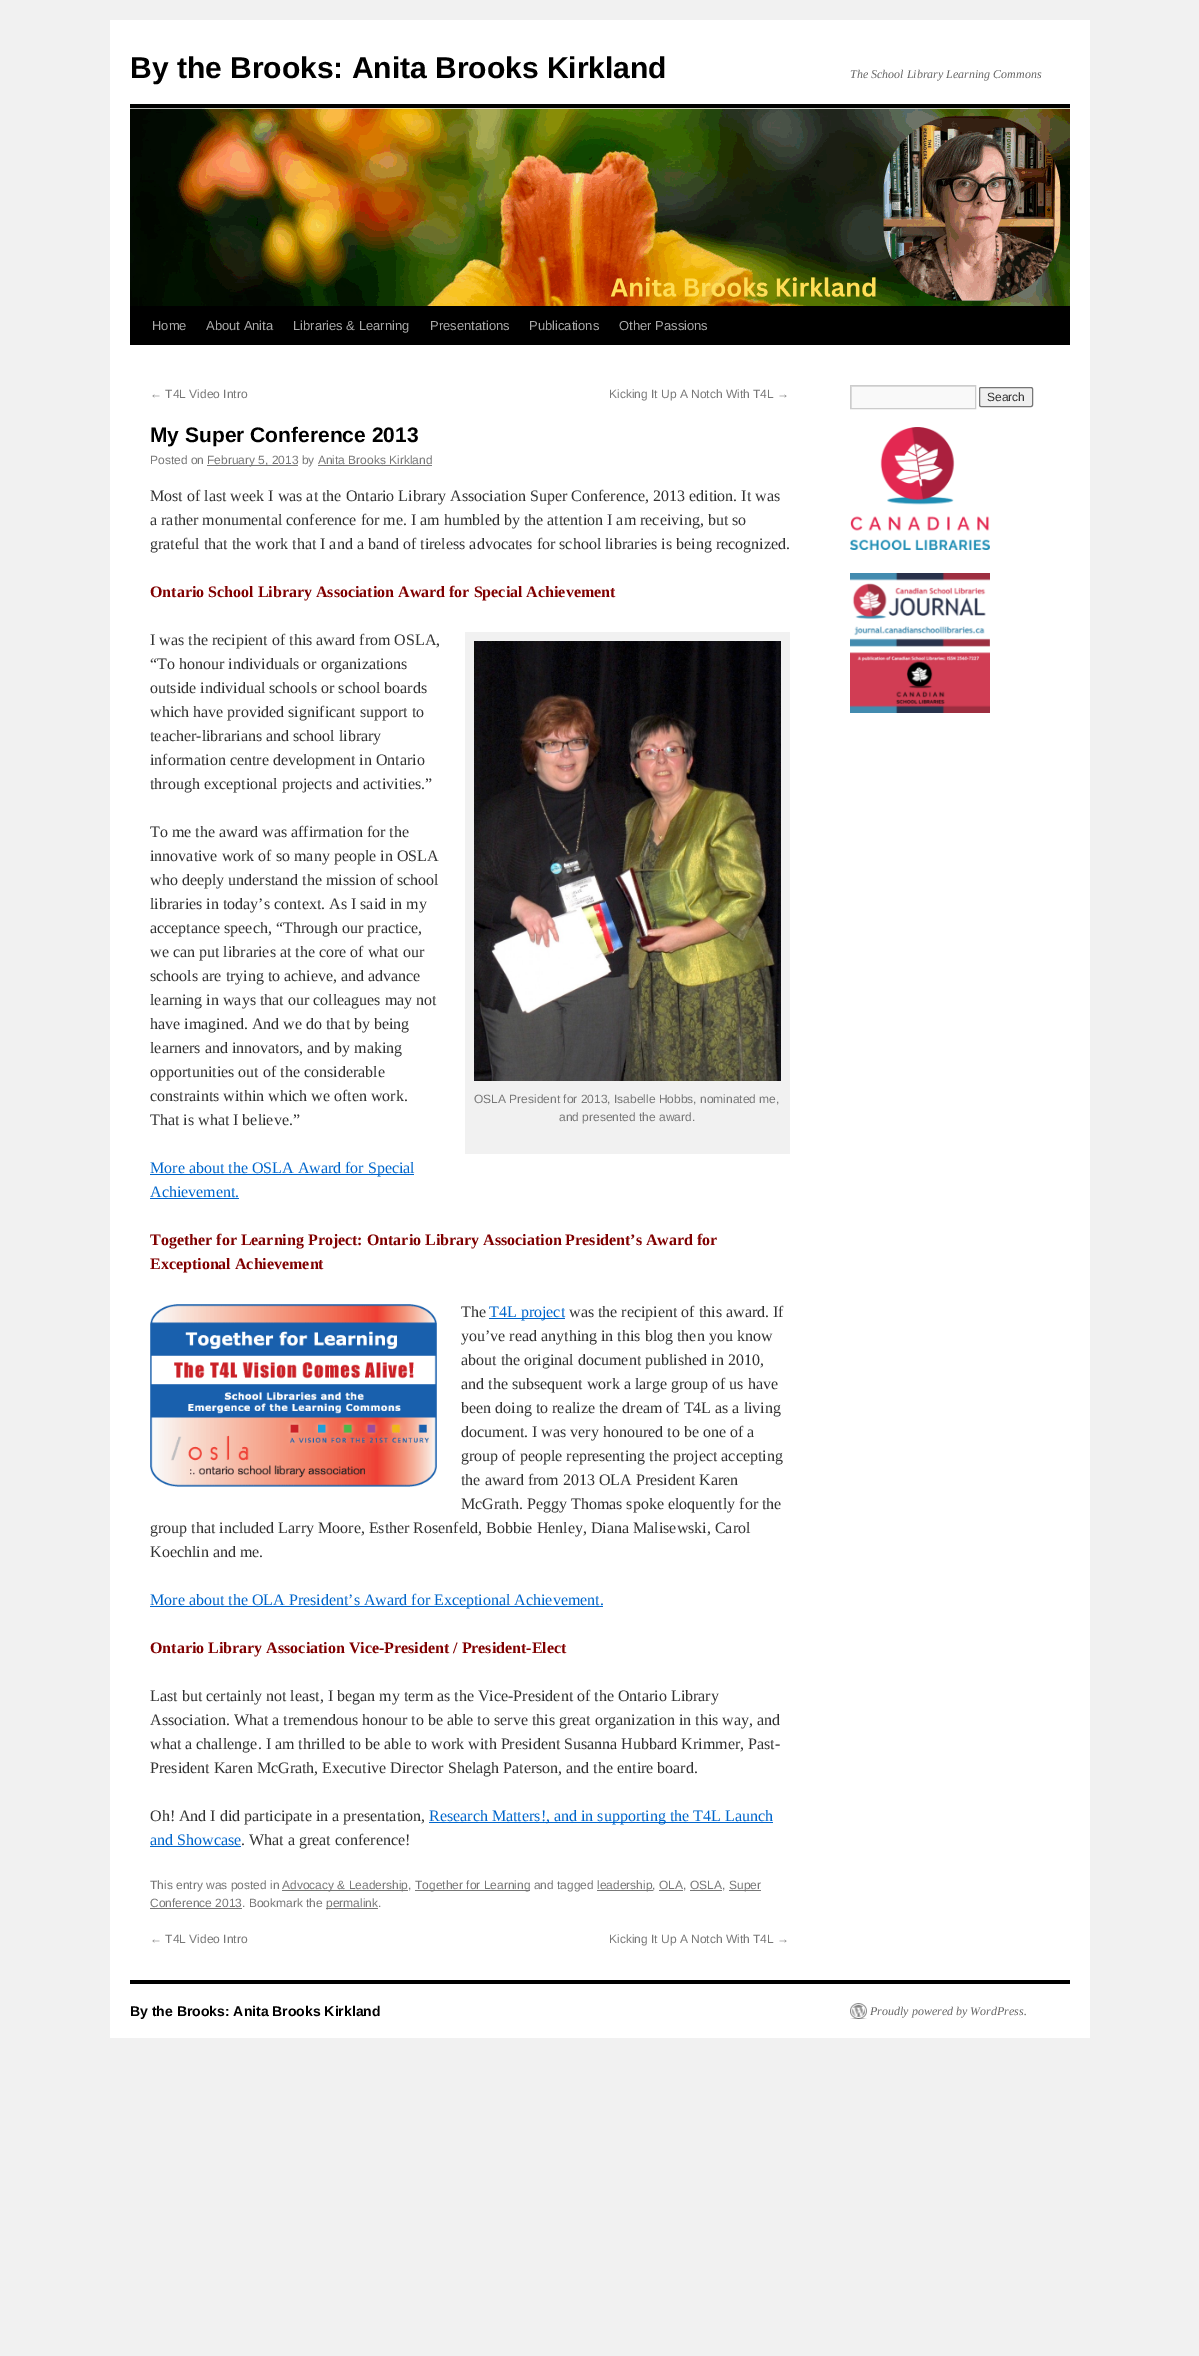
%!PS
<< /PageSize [1199 2356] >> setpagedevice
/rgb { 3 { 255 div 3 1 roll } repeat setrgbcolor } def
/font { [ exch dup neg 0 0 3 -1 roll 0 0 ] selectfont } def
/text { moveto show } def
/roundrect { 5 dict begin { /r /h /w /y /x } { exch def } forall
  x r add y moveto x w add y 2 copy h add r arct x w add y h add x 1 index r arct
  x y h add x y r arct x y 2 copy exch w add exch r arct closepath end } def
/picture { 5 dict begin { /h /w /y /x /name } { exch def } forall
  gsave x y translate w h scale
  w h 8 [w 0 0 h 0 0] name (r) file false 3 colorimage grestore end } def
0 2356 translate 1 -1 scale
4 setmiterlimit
241 241 241 rgb
0 0 1199 2356 rectfill
255 255 255 rgb
110 20 980 2018 rectfill
0 0 0 rgb
130 104 940 4 rectfill
130 306 940 39 rectfill
(img_01.rgb) 130 108 940 198 picture
119 119 119 rgb
207 465 91 1 rectfill
318 465 114 1 rectfill
241 241 241 rgb
465 632 325 522 rectfill
(img_02.rgb) 474 641 307 440 picture
0 102 204 rgb
150 1174 264 1 rectfill
150 1198 89 1 rectfill
(img_03.rgb) 150 1304 287 183 picture
489 1318 76 1 rectfill
150 1606 453 1 rectfill
429 1822 344 1 rectfill
150 1846 91 1 rectfill
119 119 119 rgb
282 1890 126 1 rectfill
415 1890 115 1 rectfill
597 1890 56 1 rectfill
729 1890 32 1 rectfill
659 1890 24 1 rectfill
690 1890 32 1 rectfill
150 1908 92 1 rectfill
326 1908 52 1 rectfill
249 249 249 rgb
852 387 123 21 rectfill
gsave
851 386 124 22 rectclip
224 224 224 rgb
752 287 moveto 322 0 rlineto 0 220 rlineto -322 0 rlineto closepath 852 387 moveto 124 0 rlineto 0 22 rlineto -124 0 rlineto closepath eofill
grestore
204 204 204 rgb
850.5 385.5 125 23 rectstroke
239 239 239 rgb
979.5 387.5 53 19 1.5 roundrect gsave fill grestore
118 118 118 rgb
stroke
(img_04.rgb) 850 427 140 123 picture
(img_05.rgb) 850 573 140 140 picture
0 0 0 rgb
130 1980 940 4 rectfill
(img_06.rgb) 850 2003 17 16 picture
/LiberationSans-Bold 30 font
(By the Brooks: Anita Brooks Kirkland) 130 78 text
/LiberationSerif-Italic 12 font
102 102 102 rgb
(The School Library Learning Commons) 850 78 text
/LiberationSans-Regular 13 font
170 170 170 rgb
(Home) 152 330 text
(About Anita) 206 330 text
(Libraries & Learning) 293 330 text
(Presentations) 430 330 text
(Publications) 529 330 text
(Other Passions) 619 330 text
/LiberationSans-Regular 12 font
119 119 119 rgb
(← T4L Video Intro) 150 398 text
(Kicking It Up A Notch With T4L →) 609 398 text
/LiberationSans-Bold 21 font
0 0 0 rgb
(My Super Conference 2013) 150 442 text
/LiberationSans-Regular 12 font
119 119 119 rgb
(Posted on) 150 464 text
(February 5, 2013 by Anita Brooks Kirkland) 207 464 text
/LiberationSerif-Regular 16 font
51 51 51 rgb
(Most of last week I was at the Ontario Library Association Super Conference, 2013 edition. It was) 150 501 text
(a rather monumental conference for me. I am humbled by the attention I am receiving, but so) 150 525 text
(grateful that the work that I and a band of tireless advocates for school libraries is being recognized.) 150 549 text
/LiberationSerif-Bold 16 font
128 0 0 rgb
(Ontario School Library Association Award for Special Achievement) 150 597 text
/LiberationSerif-Regular 16 font
51 51 51 rgb
(I was the recipient of this award from OSLA,) 150 645 text
(“To honour individuals or organizations) 150 669 text
(outside individual schools or school boards) 150 693 text
(which have provided significant support to) 150 717 text
(teacher-librarians and school library) 150 741 text
(information centre development in Ontario) 150 765 text
(through exceptional projects and activities.”) 150 789 text
(To me the award was affirmation for the) 150 837 text
(innovative work of so many people in OSLA) 150 861 text
(who deeply understand the mission of school) 150 885 text
(libraries in today’s context. As I said in my) 150 909 text
(acceptance speech, “Through our practice,) 150 933 text
(we can put libraries at the core of what our) 150 957 text
(schools are trying to achieve, and advance) 150 981 text
(learning in ways that our colleagues may not) 150 1005 text
(have imagined. And we do that by being) 150 1029 text
(learners and innovators, and by making) 150 1053 text
(opportunities out of the considerable) 150 1077 text
(constraints within which we often work.) 150 1101 text
(That is what I believe.”) 150 1125 text
/LiberationSans-Regular 12 font
119 119 119 rgb
(OSLA President for 2013, Isabelle Hobbs, nominated me,) 474 1103 text
(and presented the award.) 559 1121 text
/LiberationSerif-Regular 16 font
0 102 204 rgb
(More about the OSLA Award for Special) 150 1173 text
(Achievement.) 150 1197 text
/LiberationSerif-Bold 16 font
128 0 0 rgb
(Together for Learning Project: Ontario Library Association President’s Award for) 150 1245 text
(Exceptional Achievement) 150 1269 text
/LiberationSerif-Regular 16 font
51 51 51 rgb
(The) 461 1317 text
0 102 204 rgb
(T4L project) 489 1317 text
51 51 51 rgb
(was the recipient of this award. If) 569 1317 text
(you’ve read anything in this blog then you know) 461 1341 text
(about the original document published in 2010,) 461 1365 text
(and the subsequent work a large group of us have) 461 1389 text
(been doing to realize the dream of T4L as a living) 461 1413 text
(document. I was very honoured to be one of a) 461 1437 text
(group of people representing the project accepting) 461 1461 text
(the award from 2013 OLA President Karen) 461 1485 text
(McGrath. Peggy Thomas spoke eloquently for the) 461 1509 text
(group that included Larry Moore, Esther Rosenfeld, Bobbie Henley, Diana Malisewski, Carol) 150 1533 text
(Koechlin and me.) 150 1557 text
0 102 204 rgb
(More about the OLA President’s Award for Exceptional Achievement.) 150 1605 text
/LiberationSerif-Bold 16 font
128 0 0 rgb
(Ontario Library Association Vice-President / President-Elect) 150 1653 text
/LiberationSerif-Regular 16 font
51 51 51 rgb
(Last but certainly not least, I began my term as the Vice-President of the Ontario Library) 150 1701 text
(Association. What a tremendous honour to be able to serve this great organization in this way, and) 150 1725 text
(what a challenge. I am thrilled to be able to work with President Susanna Hubbard Krimmer, Past-) 150 1749 text
(President Karen McGrath, Executive Director Shelagh Paterson, and the entire board.) 150 1773 text
(Oh! And I did participate in a presentation,) 150 1821 text
0 102 204 rgb
(Research Matters!, and in supporting the T4L Launch) 429 1821 text
(and Showcase) 150 1845 text
51 51 51 rgb
(. What a great conference!) 241 1845 text
/LiberationSans-Regular 12 font
119 119 119 rgb
(This entry was posted in) 150 1889 text
(Advocacy & Leadership,) 282 1889 text
(Together for Learning and tagged) 415 1889 text
(leadership, OLA, OSLA,) 597 1889 text
(Super) 729 1889 text
(Conference 2013. Bookmark the) 150 1907 text
(permalink.) 326 1907 text
(← T4L Video Intro) 150 1943 text
(Kicking It Up A Notch With T4L →) 609 1943 text
51 51 51 rgb
(Search) 987 401 text
/LiberationSans-Bold 14 font
0 0 0 rgb
(By the Brooks: Anita Brooks Kirkland) 130 2016 text
/LiberationSerif-Italic 12 font
102 102 102 rgb
(Proudly powered by WordPress.) 870 2015 text
showpage
